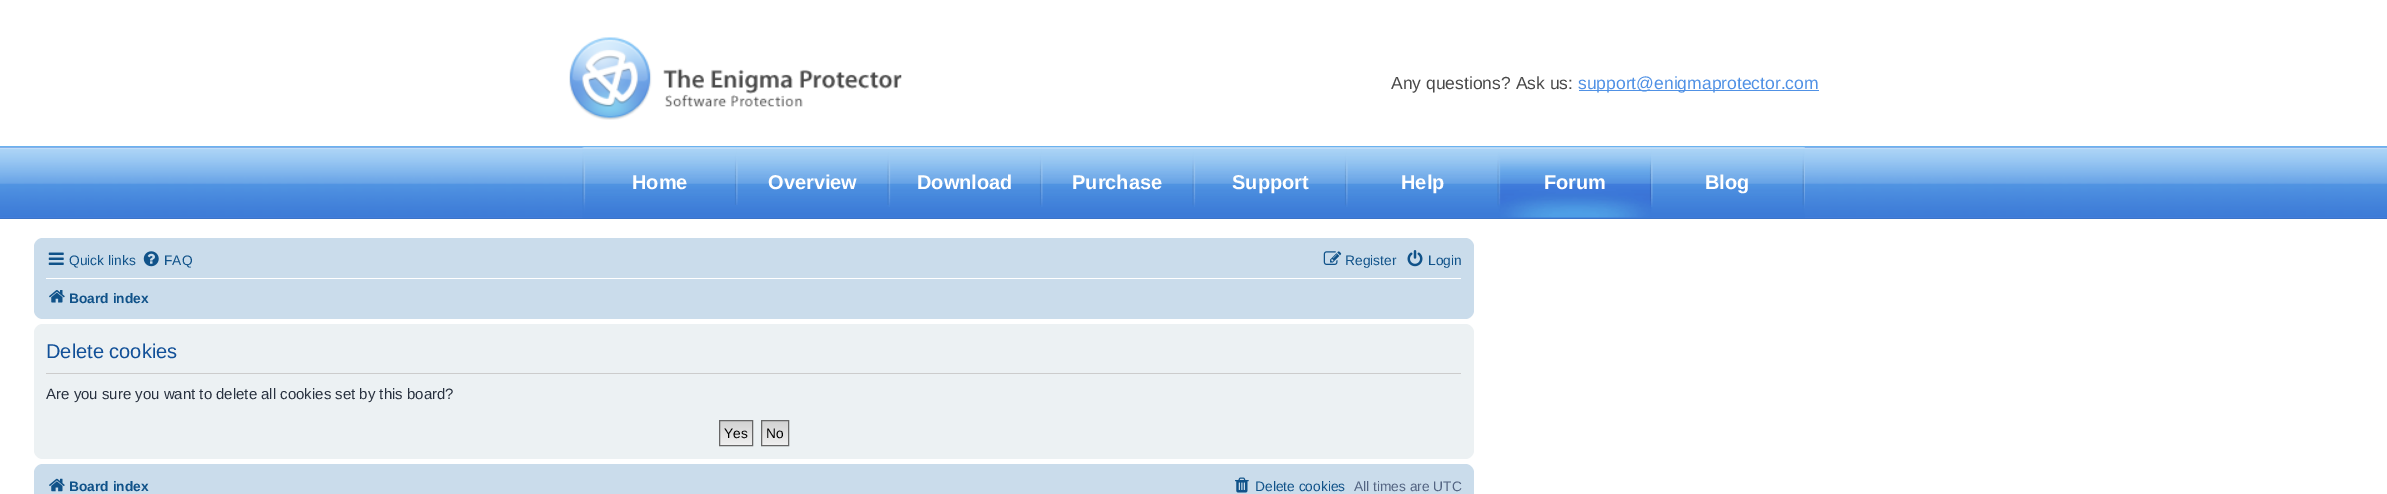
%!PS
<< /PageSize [2387 494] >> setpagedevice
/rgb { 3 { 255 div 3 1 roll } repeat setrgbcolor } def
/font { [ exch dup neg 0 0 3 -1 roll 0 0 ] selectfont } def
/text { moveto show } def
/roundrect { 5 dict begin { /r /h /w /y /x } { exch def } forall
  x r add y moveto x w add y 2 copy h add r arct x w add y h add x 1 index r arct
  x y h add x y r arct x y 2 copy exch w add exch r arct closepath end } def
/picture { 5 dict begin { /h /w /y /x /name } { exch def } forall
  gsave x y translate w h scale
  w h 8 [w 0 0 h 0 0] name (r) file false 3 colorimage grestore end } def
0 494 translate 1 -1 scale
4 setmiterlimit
255 255 255 rgb
0 0 2387 494 rectfill
(img_01.rgb) 569 37 333 83 picture
80 145 229 rgb
1579 90 240 1 rectfill
66 125 219 rgb
0 147 2387 71 rectfill
(img_02.rgb) 0 147 2387 70 picture
106 178 238 rgb
0 146 2387 1 rectfill
59 115 199 rgb
0 218 2387 1 rectfill
(img_03.rgb) 582 147 1223 71 picture
(img_04.rgb) 583 147 154 58 picture
(img_05.rgb) 736 147 153 58 picture
(img_06.rgb) 888 147 154 60 picture
(img_07.rgb) 1041 147 153 60 picture
(img_08.rgb) 1193 147 154 60 picture
(img_07.rgb) 1346 147 153 60 picture
(img_09.rgb) 1498 147 154 71 picture
(img_10.rgb) 1651 147 153 60 picture
202 220 235 rgb
34 238 1440 81 9 roundrect fill
(img_11.rgb) 48 252 16 13 picture
(img_12.rgb) 143 251 16 16 picture
(img_13.rgb) 1323 251 19 14 picture
(img_14.rgb) 1407 250 16 17 picture
255 255 255 rgb
46 278 1415 1 rectfill
(img_15.rgb) 49 290 16 13 picture
236 241 243 rgb
34 324 1440 135 9 roundrect fill
204 204 204 rgb
46 373 1415 1 rectfill
gsave 720 421 moveto 32 0 rlineto 0 24 rlineto -32 0 rlineto closepath clip newpath
<< /ShadingType 2 /ColorSpace /DeviceRGB /Coords [736 421 736 445] /Extend [true true] /Function << /FunctionType 2 /Domain [0 1] /C0 [0.824 0.824 0.824] /C1 [0.937 0.937 0.937] /N 1 >> >> shfill grestore
102 102 102 rgb
719.5 420.5 33 25 rectstroke
gsave 762 421 moveto 26 0 rlineto 0 24 rlineto -26 0 rlineto closepath clip newpath
<< /ShadingType 2 /ColorSpace /DeviceRGB /Coords [775 421 775 445] /Extend [true true] /Function << /FunctionType 2 /Domain [0 1] /C0 [0.824 0.824 0.824] /C1 [0.937 0.937 0.937] /N 1 >> >> shfill grestore
761.5 420.5 27 25 rectstroke
202 220 235 rgb
34 464 1440 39 9 roundrect fill
(img_16.rgb) 49 478 16 14 picture
(img_17.rgb) 1235 477 14 16 picture
/LiberationSans-Regular 17.5 font
73 73 73 rgb
(Any questions? Ask us:) 1391 89 text
80 145 229 rgb
(support@enigmaprotector.com) 1578 89 text
/LiberationSans-Bold 20 font
255 255 255 rgb
(Home) 632 189 text
(Overview) 768 189 text
(Download) 917 189 text
(Purchase) 1072 189 text
(Support) 1232 189 text
(Help) 1401 189 text
(Forum) 1544 189 text
(Blog) 1705 189 text
/LiberationSans-Regular 13.75 font
16 82 137 rgb
(Quick links) 69 265 text
(FAQ) 164 265 text
(Register) 1345 265 text
(Login) 1428 265 text
/LiberationSans-Bold 13.75 font
(Board index) 69 303 text
/LiberationSans-Regular 20 font
17 80 152 rgb
(Delete cookies) 46 358 text
/LiberationSans-Regular 15 font
40 49 63 rgb
(Are you sure you want to delete all cookies set by this board?) 46 399 text
/LiberationSans-Regular 13.75 font
0 0 0 rgb
(Yes) 724 438 text
(No) 766 438 text
/LiberationSans-Bold 13.75 font
16 82 137 rgb
(Board index) 69 491 text
/LiberationSans-Regular 13.75 font
(Delete cookies) 1255 491 text
83 100 130 rgb
(All times are UTC) 1354 491 text
showpage
